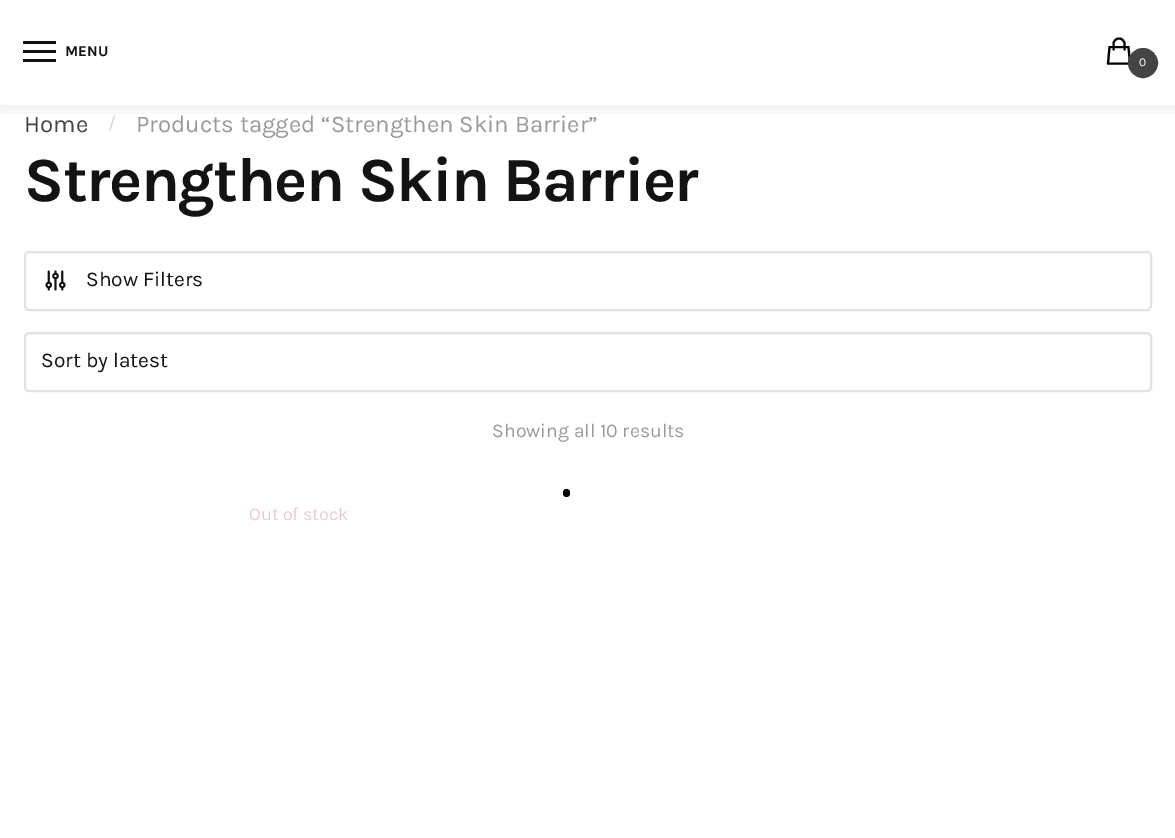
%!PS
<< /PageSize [1175 838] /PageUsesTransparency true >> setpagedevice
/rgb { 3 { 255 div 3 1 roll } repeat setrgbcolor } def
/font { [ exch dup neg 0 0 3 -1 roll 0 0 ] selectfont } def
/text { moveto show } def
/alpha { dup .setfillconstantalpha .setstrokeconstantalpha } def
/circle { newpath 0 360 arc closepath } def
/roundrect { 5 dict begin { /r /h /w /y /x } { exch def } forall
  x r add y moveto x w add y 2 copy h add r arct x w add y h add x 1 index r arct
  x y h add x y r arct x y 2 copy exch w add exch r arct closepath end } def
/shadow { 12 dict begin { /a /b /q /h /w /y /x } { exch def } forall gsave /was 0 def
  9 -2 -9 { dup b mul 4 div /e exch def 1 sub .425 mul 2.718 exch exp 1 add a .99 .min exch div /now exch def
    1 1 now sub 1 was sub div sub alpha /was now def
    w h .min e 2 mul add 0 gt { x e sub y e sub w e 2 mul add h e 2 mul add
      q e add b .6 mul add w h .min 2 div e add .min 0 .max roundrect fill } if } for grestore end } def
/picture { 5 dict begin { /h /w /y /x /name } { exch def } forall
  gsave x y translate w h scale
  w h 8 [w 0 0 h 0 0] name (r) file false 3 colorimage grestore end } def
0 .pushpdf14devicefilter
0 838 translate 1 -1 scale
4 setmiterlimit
255 255 255 rgb
0 0 1175 838 rectfill
gsave
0 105 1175 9 rectclip
0 0 0 rgb
0 2 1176 105 0 11 0.08 shadow
grestore
17 17 17 rgb
23 41 33 3 rectfill
23 50 33 3 rectfill
23 59 33 3 rectfill
0 0 0 rgb
2.1 setlinewidth
1 setlinecap
1 setlinejoin
1124.5 49.5 moveto 0 -5.5 rlineto 0 -3 -2.5 -5.5 -5.5 -5.5 rcurveto -3 0 -5.5 2.5 -5.5 5.5 rcurveto 0 5.5 rlineto 1109.5 47 moveto 19 0 rlineto 1.5 16.5 rlineto -22 0 rlineto closepath stroke
68 68 68 rgb
1143 63 14 circle gsave fill grestore
2 setlinewidth
0 setlinecap
0 setlinejoin
stroke
226 226 226 rgb
25 252 1126 58 4 roundrect stroke
(img_01.rgb) 45 270 21 21 picture
25 333 1126 58 4 roundrect stroke
0 0 0 rgb
563 489 7 8 3.5 roundrect fill
/Karla-Bold 15 font
19 19 21 rgb
(MENU) 65 56 text
/Karla-Regular 12 font
255 255 255 rgb
(0) 1139 66 text
/Karla-Regular 24 font
68 68 68 rgb
(Home) 24 132 text
/Karla-Regular 19 font
214 214 214 rgb
(/) 108 129 text
/Karla-Regular 24 font
153 153 153 rgb
(Products tagged “Strengthen Skin Barrier”) 136 132 text
/Karla-Bold 62.75 font
19 19 21 rgb
24 201 moveto -1.5 0 (Strengthen Skin Barrier) ashow
/Karla-Regular 21 font
(Show Filters) 86 286 text
(Sort by latest) 41 367 text
/Karla-Regular 19.5 font
153 153 153 rgb
(Showing all 10 results) 492 437 text
/Karla-Regular 18 font
238 200 200 rgb
(Out of stock) 249 520 text
.poppdf14devicefilter showpage
